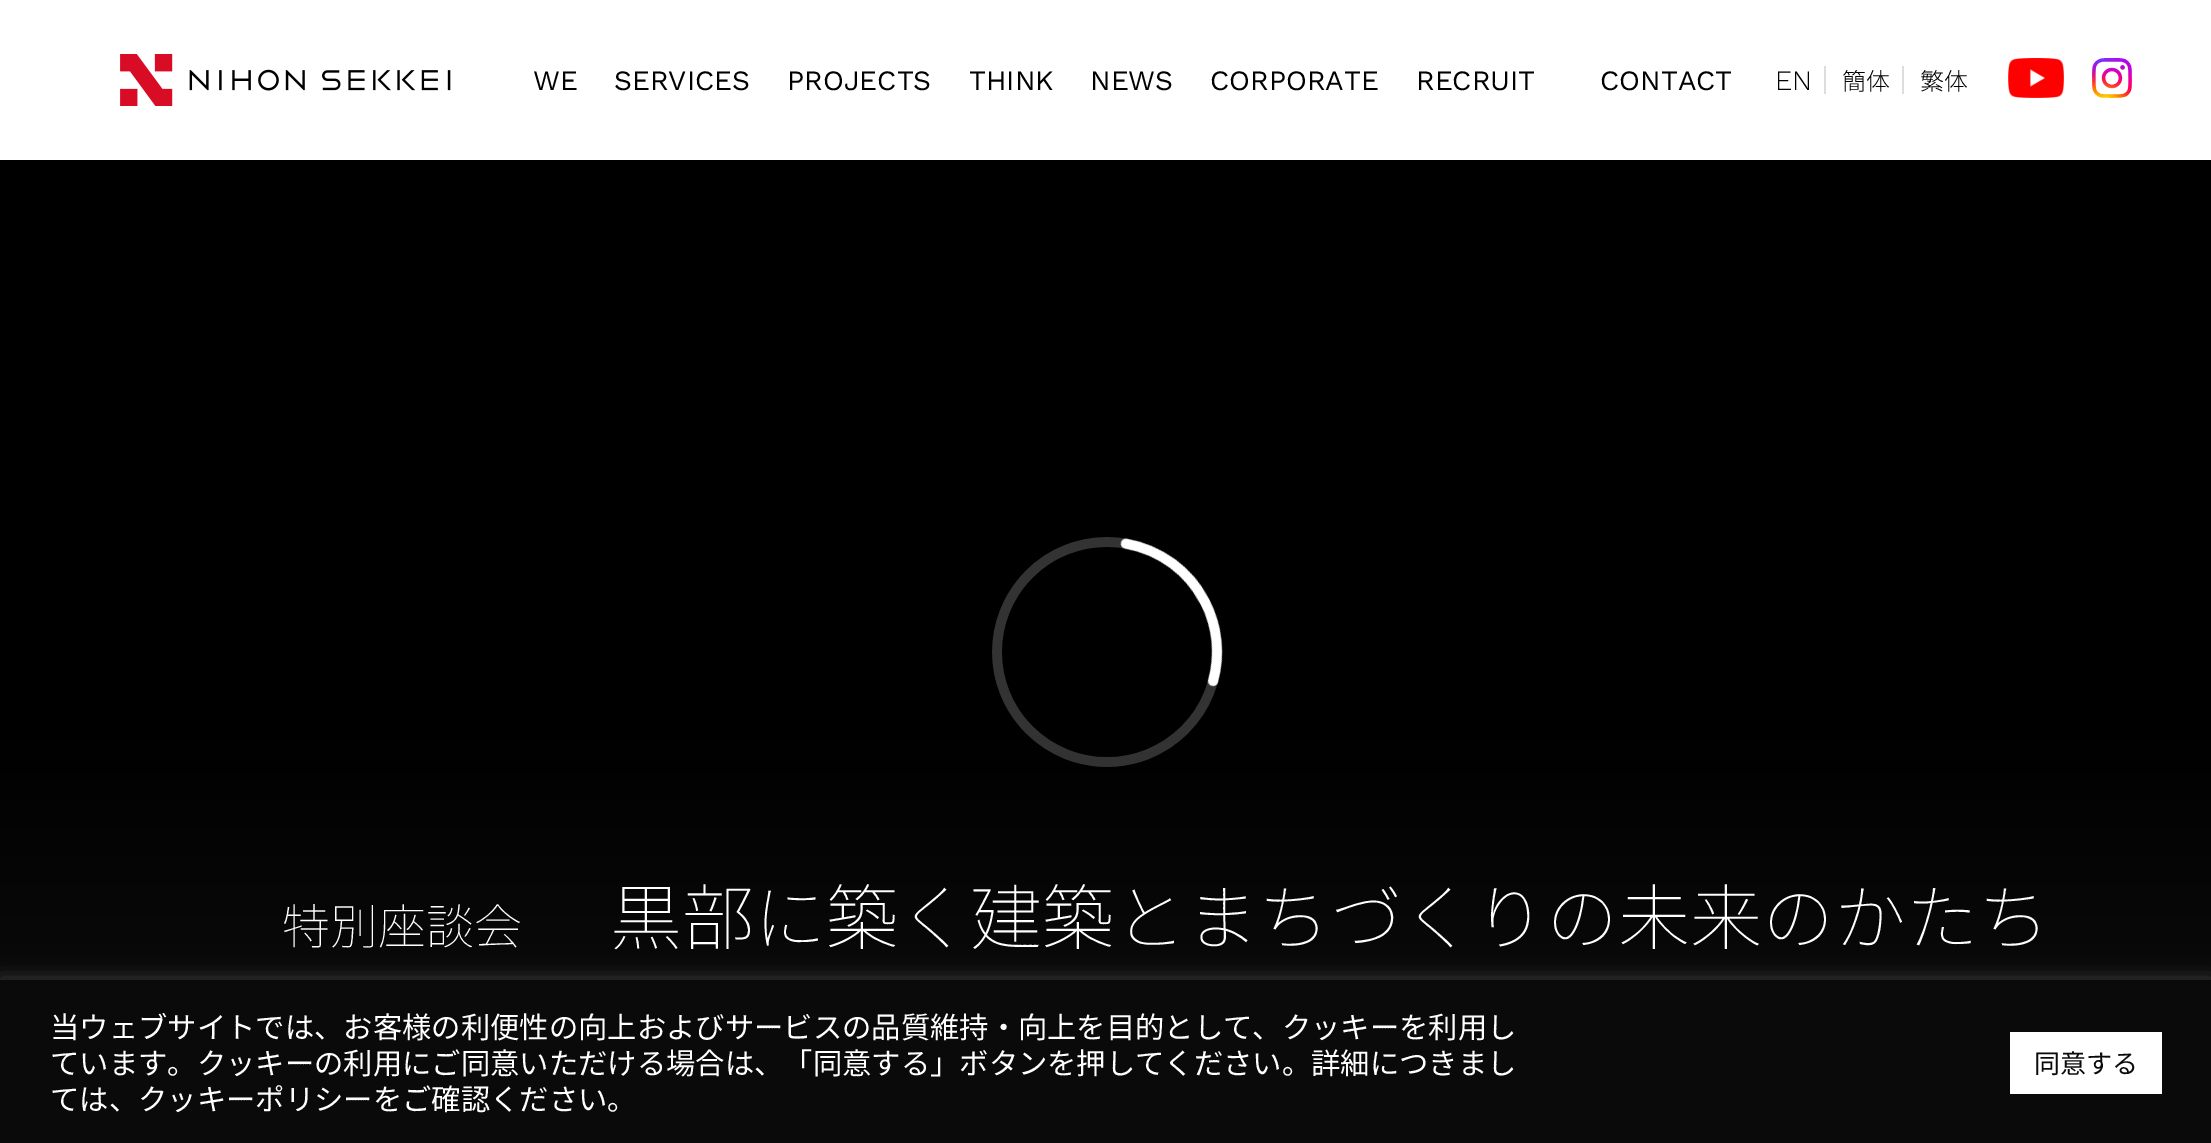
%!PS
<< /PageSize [2211 1143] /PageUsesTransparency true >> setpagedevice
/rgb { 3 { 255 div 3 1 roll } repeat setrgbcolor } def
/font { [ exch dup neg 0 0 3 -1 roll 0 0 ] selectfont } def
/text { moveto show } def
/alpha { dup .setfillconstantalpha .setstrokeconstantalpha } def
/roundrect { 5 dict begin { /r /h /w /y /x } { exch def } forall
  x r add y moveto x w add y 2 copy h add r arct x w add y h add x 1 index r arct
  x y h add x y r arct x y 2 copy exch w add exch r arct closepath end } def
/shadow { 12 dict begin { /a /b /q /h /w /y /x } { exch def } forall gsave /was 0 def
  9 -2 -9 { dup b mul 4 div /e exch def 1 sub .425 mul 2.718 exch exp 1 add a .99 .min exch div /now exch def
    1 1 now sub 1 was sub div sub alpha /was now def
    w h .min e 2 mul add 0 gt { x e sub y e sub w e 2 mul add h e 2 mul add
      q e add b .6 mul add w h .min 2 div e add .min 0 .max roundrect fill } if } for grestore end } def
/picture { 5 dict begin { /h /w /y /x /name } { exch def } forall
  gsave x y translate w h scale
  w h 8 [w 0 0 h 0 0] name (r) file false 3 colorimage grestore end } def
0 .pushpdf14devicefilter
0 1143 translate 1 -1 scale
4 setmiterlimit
255 255 255 rgb
0 0 2211 1143 rectfill
(img_01.rgb) 120 54 331 52 picture
221 221 221 rgb
1824 66 2 28 rectfill
1902 66 2 28 rectfill
(img_02.rgb) 2008 58 56 40 picture
(img_03.rgb) 2092 58 40 40 picture
(img_04.rgb) 0 160 2211 820 picture
172 171 171 rgb
0 978 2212 164 0 10 0.3 shadow
10 10 10 rgb
0 980 2211 163 rectfill
255 255 255 rgb
2010 1032 152 62 rectfill
/WorkSans-Regular 28 font
0 0 0 rgb
(WE) 533 90 text
(SERVICES) 614 90 text
(PROJECTS) 787 90 text
(THINK) 969 90 text
(NEWS) 1090 90 text
(CORPORATE) 1210 90 text
(RECRUIT) 1416 90 text
(CONTACT) 1600 90 text
/WorkSans-Light 28 font
(EN) 1775 90 text
/NotoSansJP-Light 24 font
(簡体) 1842 90 text
(繁体) 1920 90 text
/NotoSansJP-Thin 48 font
255 255 255 rgb
(特別座談会) 282 944 text
/NotoSansJP-Thin 72 font
(黒部に築く建築とまちづくりの未来のかたち) 610 944 text
/NotoSansJP-Regular 29.33 font
(当ウェブサイトでは、お客様の利便性の向上およびサービスの品質維持・向上を目的として、クッキーを利用し) 50 1038 text
(ています。クッキーの利用にご同意いただける場合は、「同意する」ボタンを押してください。詳細につきまし) 50 1074 text
(ては、クッキーポリシーをご確認ください。) 50 1110 text
/NotoSansJP-Regular 26 font
10 10 10 rgb
(同意する) 2034 1073 text
.poppdf14devicefilter showpage
